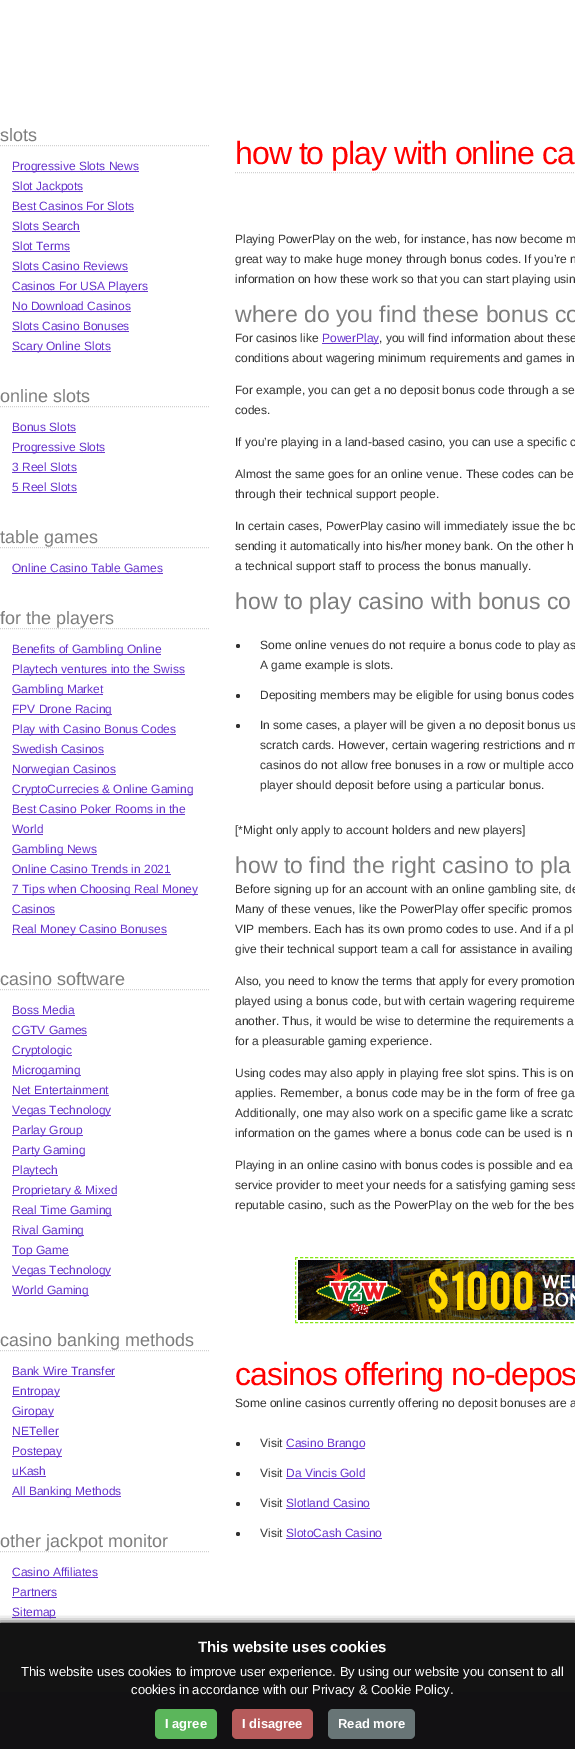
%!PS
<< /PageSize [575 1749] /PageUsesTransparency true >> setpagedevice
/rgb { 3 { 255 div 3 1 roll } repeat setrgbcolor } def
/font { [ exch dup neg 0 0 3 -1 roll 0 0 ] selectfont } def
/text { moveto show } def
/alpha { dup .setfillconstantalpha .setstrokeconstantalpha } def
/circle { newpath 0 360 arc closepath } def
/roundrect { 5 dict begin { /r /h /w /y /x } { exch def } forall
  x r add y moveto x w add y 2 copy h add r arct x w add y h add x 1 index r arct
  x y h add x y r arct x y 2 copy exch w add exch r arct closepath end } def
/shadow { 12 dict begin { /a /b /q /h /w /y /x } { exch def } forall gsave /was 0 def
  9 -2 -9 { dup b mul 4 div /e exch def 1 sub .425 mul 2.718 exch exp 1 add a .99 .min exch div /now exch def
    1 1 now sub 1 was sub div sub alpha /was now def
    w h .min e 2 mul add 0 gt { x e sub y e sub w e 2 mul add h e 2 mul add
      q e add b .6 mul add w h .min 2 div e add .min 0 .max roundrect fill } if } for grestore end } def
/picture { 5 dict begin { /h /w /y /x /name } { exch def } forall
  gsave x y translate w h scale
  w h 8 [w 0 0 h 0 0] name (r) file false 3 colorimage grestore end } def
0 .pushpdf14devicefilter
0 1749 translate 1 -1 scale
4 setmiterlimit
255 255 255 rgb
0 0 575 1749 rectfill
19 19 19 rgb
0 1623 575 69 rectfill
209 209 209 rgb
[1 1] 0 setdash
0 145.5 moveto 210 0 rlineto stroke
102 51 204 rgb
12 171 127 1 rectfill
12 191 71 1 rectfill
12 211 122 1 rectfill
12 231 68 1 rectfill
12 251 58 1 rectfill
12 271 116 1 rectfill
12 291 136 1 rectfill
12 311 119 1 rectfill
12 331 117 1 rectfill
12 351 99 1 rectfill
209 209 209 rgb
0 406.5 moveto 210 0 rlineto stroke
102 51 204 rgb
12 432 64 1 rectfill
12 452 93 1 rectfill
12 472 65 1 rectfill
12 492 65 1 rectfill
209 209 209 rgb
0 547.5 moveto 210 0 rlineto stroke
102 51 204 rgb
12 573 151 1 rectfill
209 209 209 rgb
0 628.5 moveto 210 0 rlineto stroke
102 51 204 rgb
12 654 149 1 rectfill
12 674 173 1 rectfill
12 694 91 1 rectfill
12 714 100 1 rectfill
12 734 164 1 rectfill
12 754 92 1 rectfill
12 774 104 1 rectfill
12 794 181 1 rectfill
12 814 173 1 rectfill
12 834 31 1 rectfill
12 854 85 1 rectfill
12 874 159 1 rectfill
12 894 186 1 rectfill
12 914 43 1 rectfill
12 934 155 1 rectfill
209 209 209 rgb
0 989.5 moveto 210 0 rlineto stroke
102 51 204 rgb
12 1015 63 1 rectfill
12 1035 75 1 rectfill
12 1055 60 1 rectfill
12 1075 69 1 rectfill
12 1095 97 1 rectfill
12 1115 99 1 rectfill
12 1135 71 1 rectfill
12 1155 73 1 rectfill
12 1175 46 1 rectfill
12 1195 105 1 rectfill
12 1215 100 1 rectfill
12 1235 72 1 rectfill
12 1255 57 1 rectfill
12 1275 99 1 rectfill
12 1295 77 1 rectfill
209 209 209 rgb
0 1350.5 moveto 210 0 rlineto stroke
102 51 204 rgb
12 1376 103 1 rectfill
12 1396 48 1 rectfill
12 1416 42 1 rectfill
12 1436 47 1 rectfill
12 1456 50 1 rectfill
12 1476 34 1 rectfill
12 1496 109 1 rectfill
209 209 209 rgb
0 1551.5 moveto 210 0 rlineto stroke
102 51 204 rgb
12 1577 86 1 rectfill
12 1597 45 1 rectfill
12 1617 44 1 rectfill
209 209 209 rgb
235 172.5 moveto 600 0 rlineto stroke
102 51 204 rgb
322 343 57 1 rectfill
51 51 51 rgb
238 646 2 circle fill
238 696 2 circle fill
238 726 2 circle fill
134 231 20 rgb
[3 2.01] 0 setdash
295 1257.5 moveto 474 0 rlineto stroke
295 1322.5 moveto 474 0 rlineto stroke
[3 1.85] 0 setdash
295.5 1257 moveto 0 66 rlineto stroke
(img_01.rgb) 298 1260 277 60 picture
51 51 51 rgb
238 1444 2 circle fill
102 51 204 rgb
286 1448 79 1 rectfill
51 51 51 rgb
238 1474 2 circle fill
102 51 204 rgb
286 1478 79 1 rectfill
51 51 51 rgb
238 1504 2 circle fill
102 51 204 rgb
286 1508 84 1 rectfill
51 51 51 rgb
238 1534 2 circle fill
102 51 204 rgb
286 1538 96 1 rectfill
18 17 19 rgb
0 1692 575 57 rectfill
gsave
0 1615 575 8 rectclip
0 0 0 rgb
0 1623 575 126 0 4 0.99 shadow
grestore
91 182 91 rgb
155 1709 62 30 5 roundrect fill
182 91 91 rgb
232 1709 81 30 5 roundrect fill
104 117 118 rgb
328 1709 87 30 5 roundrect fill
/LiberationSans-Regular 18 font
125 125 125 rgb
(slots) 0 141 text
/LiberationSans-Regular 12 font
102 51 204 rgb
(Progressive Slots News) 12 170 text
(Slot Jackpots) 12 190 text
(Best Casinos For Slots) 12 210 text
(Slots Search) 12 230 text
(Slot Terms) 12 250 text
(Slots Casino Reviews) 12 270 text
(Casinos For USA Players) 12 290 text
(No Download Casinos) 12 310 text
(Slots Casino Bonuses) 12 330 text
(Scary Online Slots) 12 350 text
/LiberationSans-Regular 18 font
125 125 125 rgb
(online slots) 0 402 text
/LiberationSans-Regular 12 font
102 51 204 rgb
(Bonus Slots) 12 431 text
(Progressive Slots) 12 451 text
(3 Reel Slots) 12 471 text
(5 Reel Slots) 12 491 text
/LiberationSans-Regular 18 font
125 125 125 rgb
(table games) 0 543 text
/LiberationSans-Regular 12 font
102 51 204 rgb
(Online Casino Table Games) 12 572 text
/LiberationSans-Regular 18 font
125 125 125 rgb
(for the players) 0 624 text
/LiberationSans-Regular 12 font
102 51 204 rgb
(Benefits of Gambling Online) 12 653 text
(Playtech ventures into the Swiss) 12 673 text
(Gambling Market) 12 693 text
(FPV Drone Racing) 12 713 text
(Play with Casino Bonus Codes) 12 733 text
(Swedish Casinos) 12 753 text
(Norwegian Casinos) 12 773 text
(CryptoCurrecies & Online Gaming) 12 793 text
(Best Casino Poker Rooms in the) 12 813 text
(World) 12 833 text
(Gambling News) 12 853 text
(Online Casino Trends in 2021) 12 873 text
(7 Tips when Choosing Real Money) 12 893 text
(Casinos) 12 913 text
(Real Money Casino Bonuses) 12 933 text
/LiberationSans-Regular 18 font
125 125 125 rgb
(casino software) 0 985 text
/LiberationSans-Regular 12 font
102 51 204 rgb
(Boss Media) 12 1014 text
(CGTV Games) 12 1034 text
(Cryptologic) 12 1054 text
(Microgaming) 12 1074 text
(Net Entertainment) 12 1094 text
(Vegas Technology) 12 1114 text
(Parlay Group) 12 1134 text
(Party Gaming) 12 1154 text
(Playtech) 12 1174 text
(Proprietary & Mixed) 12 1194 text
(Real Time Gaming) 12 1214 text
(Rival Gaming) 12 1234 text
(Top Game) 12 1254 text
(Vegas Technology) 12 1274 text
(World Gaming) 12 1294 text
/LiberationSans-Regular 18 font
125 125 125 rgb
(casino banking methods) 0 1346 text
/LiberationSans-Regular 12 font
102 51 204 rgb
(Bank Wire Transfer) 12 1375 text
(Entropay) 12 1395 text
(Giropay) 12 1415 text
(NETeller) 12 1435 text
(Postepay) 12 1455 text
(uKash) 12 1475 text
(All Banking Methods) 12 1495 text
/LiberationSans-Regular 18 font
125 125 125 rgb
(other jackpot monitor) 0 1547 text
/LiberationSans-Regular 12 font
102 51 204 rgb
(Casino Affiliates) 12 1576 text
(Partners) 12 1596 text
(Sitemap) 12 1616 text
/LiberationSans-Regular 32 font
255 0 0 rgb
235 164 moveto -1 0 (how to play with online ca) ashow
/LiberationSans-Regular 12 font
51 51 51 rgb
(Playing PowerPlay on the web, for instance, has now become m) 235 243 text
(great way to make huge money through bonus codes. If you’re n) 235 263 text
(information on how these work so that you can start playing usin) 235 283 text
/LiberationSans-Regular 23 font
125 125 125 rgb
(where do you find these bonus co) 235 322 text
/LiberationSans-Regular 12 font
51 51 51 rgb
(For casinos like) 235 342 text
102 51 204 rgb
(PowerPlay) 322 342 text
51 51 51 rgb
(, you will find information about these) 379 342 text
(conditions about wagering minimum requirements and games in) 235 362 text
(For example, you can get a no deposit bonus code through a se) 235 394 text
(codes.) 235 414 text
(If you’re playing in a land-based casino, you can use a specific c) 235 446 text
(Almost the same goes for an online venue. These codes can be) 235 478 text
(through their technical support people.) 235 498 text
(In certain cases, PowerPlay casino will immediately issue the bo) 235 530 text
(sending it automatically into his/her money bank. On the other h) 235 550 text
(a technical support staff to process the bonus manually.) 235 570 text
/LiberationSans-Regular 23 font
125 125 125 rgb
(how to play casino with bonus co) 235 609 text
/LiberationSans-Regular 12 font
51 51 51 rgb
(Some online venues do not require a bonus code to play as) 260 649 text
(A game example is slots.) 260 669 text
(Depositing members may be eligible for using bonus codes) 260 699 text
(In some cases, a player will be given a no deposit bonus us) 260 729 text
(scratch cards. However, certain wagering restrictions and m) 260 749 text
(casinos do not allow free bonuses in a row or multiple acco) 260 769 text
(player should deposit before using a particular bonus.) 260 789 text
([*Might only apply to account holders and new players]) 235 834 text
/LiberationSans-Regular 23 font
125 125 125 rgb
(how to find the right casino to pla) 235 873 text
/LiberationSans-Regular 12 font
51 51 51 rgb
(Before signing up for an account with an online gambling site, de) 235 893 text
(Many of these venues, like the PowerPlay offer specific promos) 235 913 text
(VIP members. Each has its own promo codes to use. And if a pl) 235 933 text
(give their technical support team a call for assistance in availing) 235 953 text
(Also, you need to know the terms that apply for every promotion) 235 985 text
(played using a bonus code, but with certain wagering requireme) 235 1005 text
(another. Thus, it would be wise to determine the requirements a) 235 1025 text
(for a pleasurable gaming experience.) 235 1045 text
(Using codes may also apply in playing free slot spins. This is on) 235 1077 text
(applies. Remember, a bonus code may be in the form of free ga) 235 1097 text
(Additionally, one may also work on a specific game like a scratc) 235 1117 text
(information on the games where a bonus code can be used is n) 235 1137 text
(Playing in an online casino with bonus codes is possible and ea) 235 1169 text
(service provider to meet your needs for a satisfying gaming sess) 235 1189 text
(reputable casino, such as the PowerPlay on the web for the bes) 235 1209 text
/LiberationSans-Regular 32 font
255 0 0 rgb
235 1385 moveto -1 0 (casinos offering no-depos) ashow
/LiberationSans-Regular 12 font
51 51 51 rgb
(Some online casinos currently offering no deposit bonuses are a) 235 1407 text
(Visit) 260 1447 text
102 51 204 rgb
(Casino Brango) 286 1447 text
51 51 51 rgb
(Visit) 260 1477 text
102 51 204 rgb
(Da Vincis Gold) 286 1477 text
51 51 51 rgb
(Visit) 260 1507 text
102 51 204 rgb
(Slotland Casino) 286 1507 text
51 51 51 rgb
(Visit) 260 1537 text
102 51 204 rgb
(SlotoCash Casino) 286 1537 text
/LiberationSans-Bold 15 font
255 255 255 rgb
(This website uses cookies) 198 1652 text
/LiberationSans-Regular 13 font
(This website uses cookies to improve user experience. By using our website you consent to all) 21 1676 text
(cookies in accordance with our Privacy & Cookie Policy.) 131 1694 text
/LiberationSans-Bold 13 font
(I agree) 165 1728 text
(I disagree) 242 1728 text
(Read more) 338 1728 text
.poppdf14devicefilter showpage
